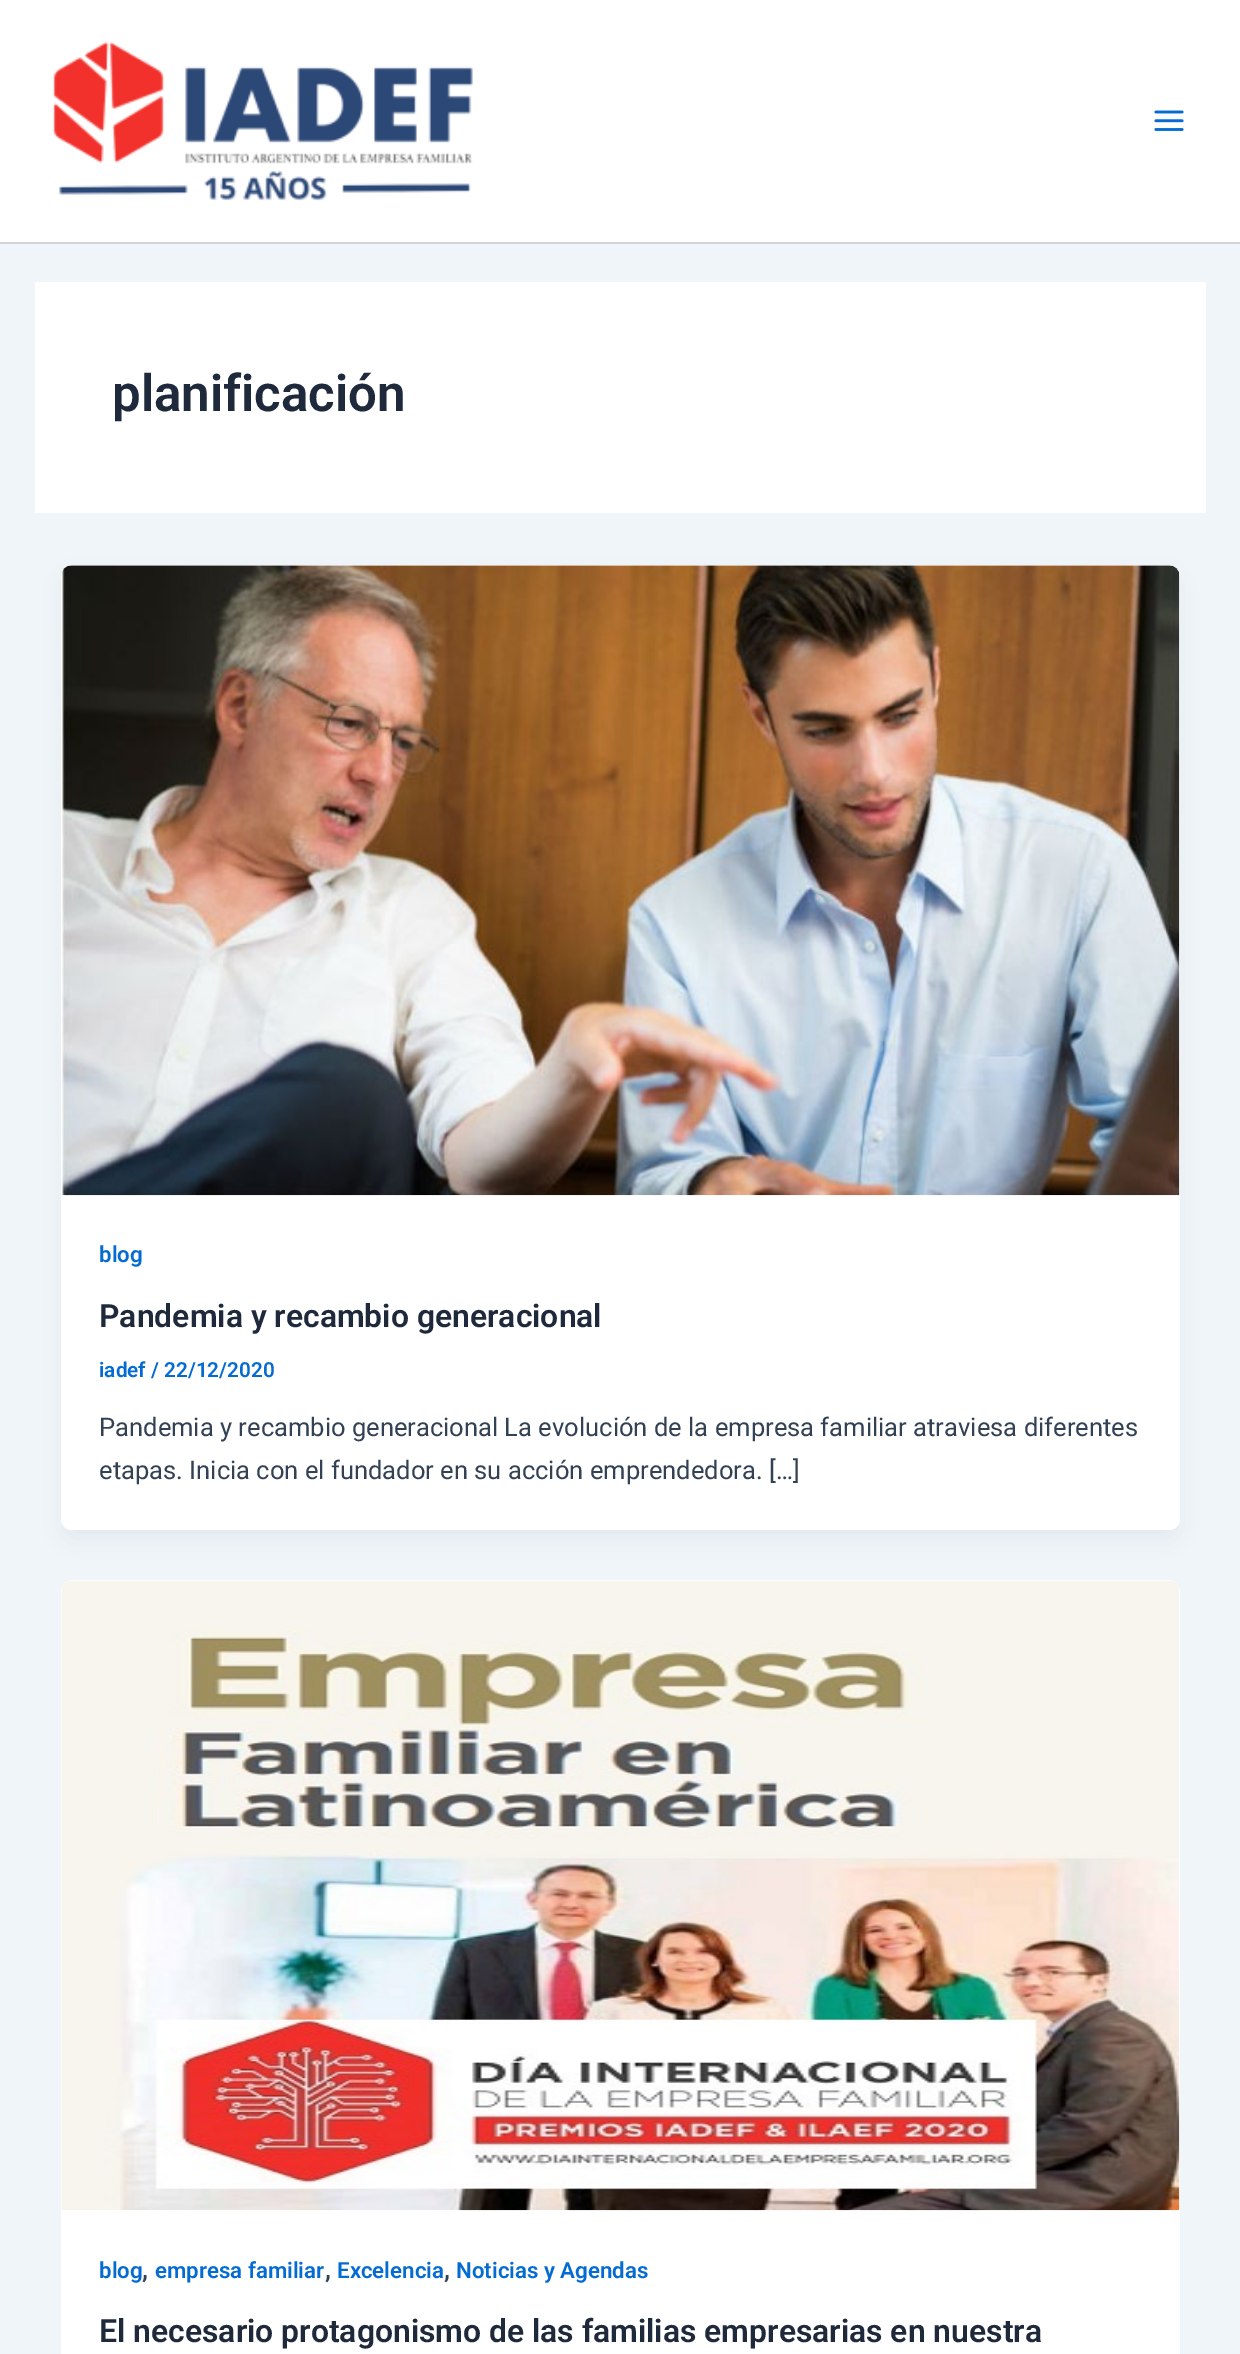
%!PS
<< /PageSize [1240 2354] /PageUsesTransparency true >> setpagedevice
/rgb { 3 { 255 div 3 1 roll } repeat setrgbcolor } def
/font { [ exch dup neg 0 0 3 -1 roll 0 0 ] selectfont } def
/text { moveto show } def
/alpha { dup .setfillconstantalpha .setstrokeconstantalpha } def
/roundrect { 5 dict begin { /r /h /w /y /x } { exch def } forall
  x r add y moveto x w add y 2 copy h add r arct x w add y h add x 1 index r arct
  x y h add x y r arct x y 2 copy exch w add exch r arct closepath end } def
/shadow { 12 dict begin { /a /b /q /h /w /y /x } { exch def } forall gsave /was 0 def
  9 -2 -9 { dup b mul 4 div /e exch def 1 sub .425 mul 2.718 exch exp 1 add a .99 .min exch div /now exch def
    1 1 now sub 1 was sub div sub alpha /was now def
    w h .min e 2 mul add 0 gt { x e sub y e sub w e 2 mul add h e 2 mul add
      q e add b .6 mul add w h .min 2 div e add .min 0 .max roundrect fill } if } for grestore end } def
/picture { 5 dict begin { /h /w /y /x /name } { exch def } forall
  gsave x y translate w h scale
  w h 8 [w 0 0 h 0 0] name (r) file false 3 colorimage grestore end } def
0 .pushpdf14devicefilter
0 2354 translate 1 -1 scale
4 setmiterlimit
240 245 250 rgb
0 0 1240 2354 rectfill
255 255 255 rgb
0 0 1240 242 rectfill
209 213 219 rgb
0 242 1240 2 rectfill
(img_01.rgb) 52 41 421 160 picture
(img_02.rgb) 1154 110 30 21 picture
255 255 255 rgb
35 282 1171 231 rectfill
16 24 40 rgb
65 579 1111 958 7 13 0.05 shadow
255 255 255 rgb
61 565 1119 965 11 roundrect fill
(img_03.rgb) 61 565 1119 631 picture
61 1580 1119 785 11 roundrect fill
(img_04.rgb) 61 1580 1119 631 picture
/Roboto-SemiBold 51 font
30 41 59 rgb
(planificación) 112 411 text
/Roboto-SemiBold 22.25 font
4 107 210 rgb
(blog) 99 1262 text
/Roboto-SemiBold 31.9 font
30 41 59 rgb
(Pandemia y recambio generacional) 99 1327 text
/Roboto-SemiBold 20.75 font
4 107 210 rgb
(iadef / 22/12/2020) 99 1377 text
/Roboto-Regular 25.55 font
51 65 85 rgb
(Pandemia y recambio generacional La evolución de la empresa familiar atraviesa diferentes) 99 1436 text
(etapas. Inicia con el fundador en su acción emprendedora. […]) 99 1479 text
/Roboto-SemiBold 22.25 font
4 107 210 rgb
(blog) 99 2278 text
/Roboto-SemiBold 25.55 font
51 65 85 rgb
(,) 142 2278 text
/Roboto-SemiBold 22.25 font
4 107 210 rgb
(empresa familiar) 155 2278 text
/Roboto-SemiBold 25.55 font
51 65 85 rgb
(,) 325 2278 text
/Roboto-SemiBold 22.25 font
4 107 210 rgb
(Excelencia) 337 2278 text
/Roboto-SemiBold 25.55 font
51 65 85 rgb
(,) 444 2278 text
/Roboto-SemiBold 22.25 font
4 107 210 rgb
(Noticias y Agendas) 456 2278 text
/Roboto-SemiBold 31.9 font
30 41 59 rgb
(El necesario protagonismo de las familias empresarias en nuestra) 99 2342 text
.poppdf14devicefilter showpage
